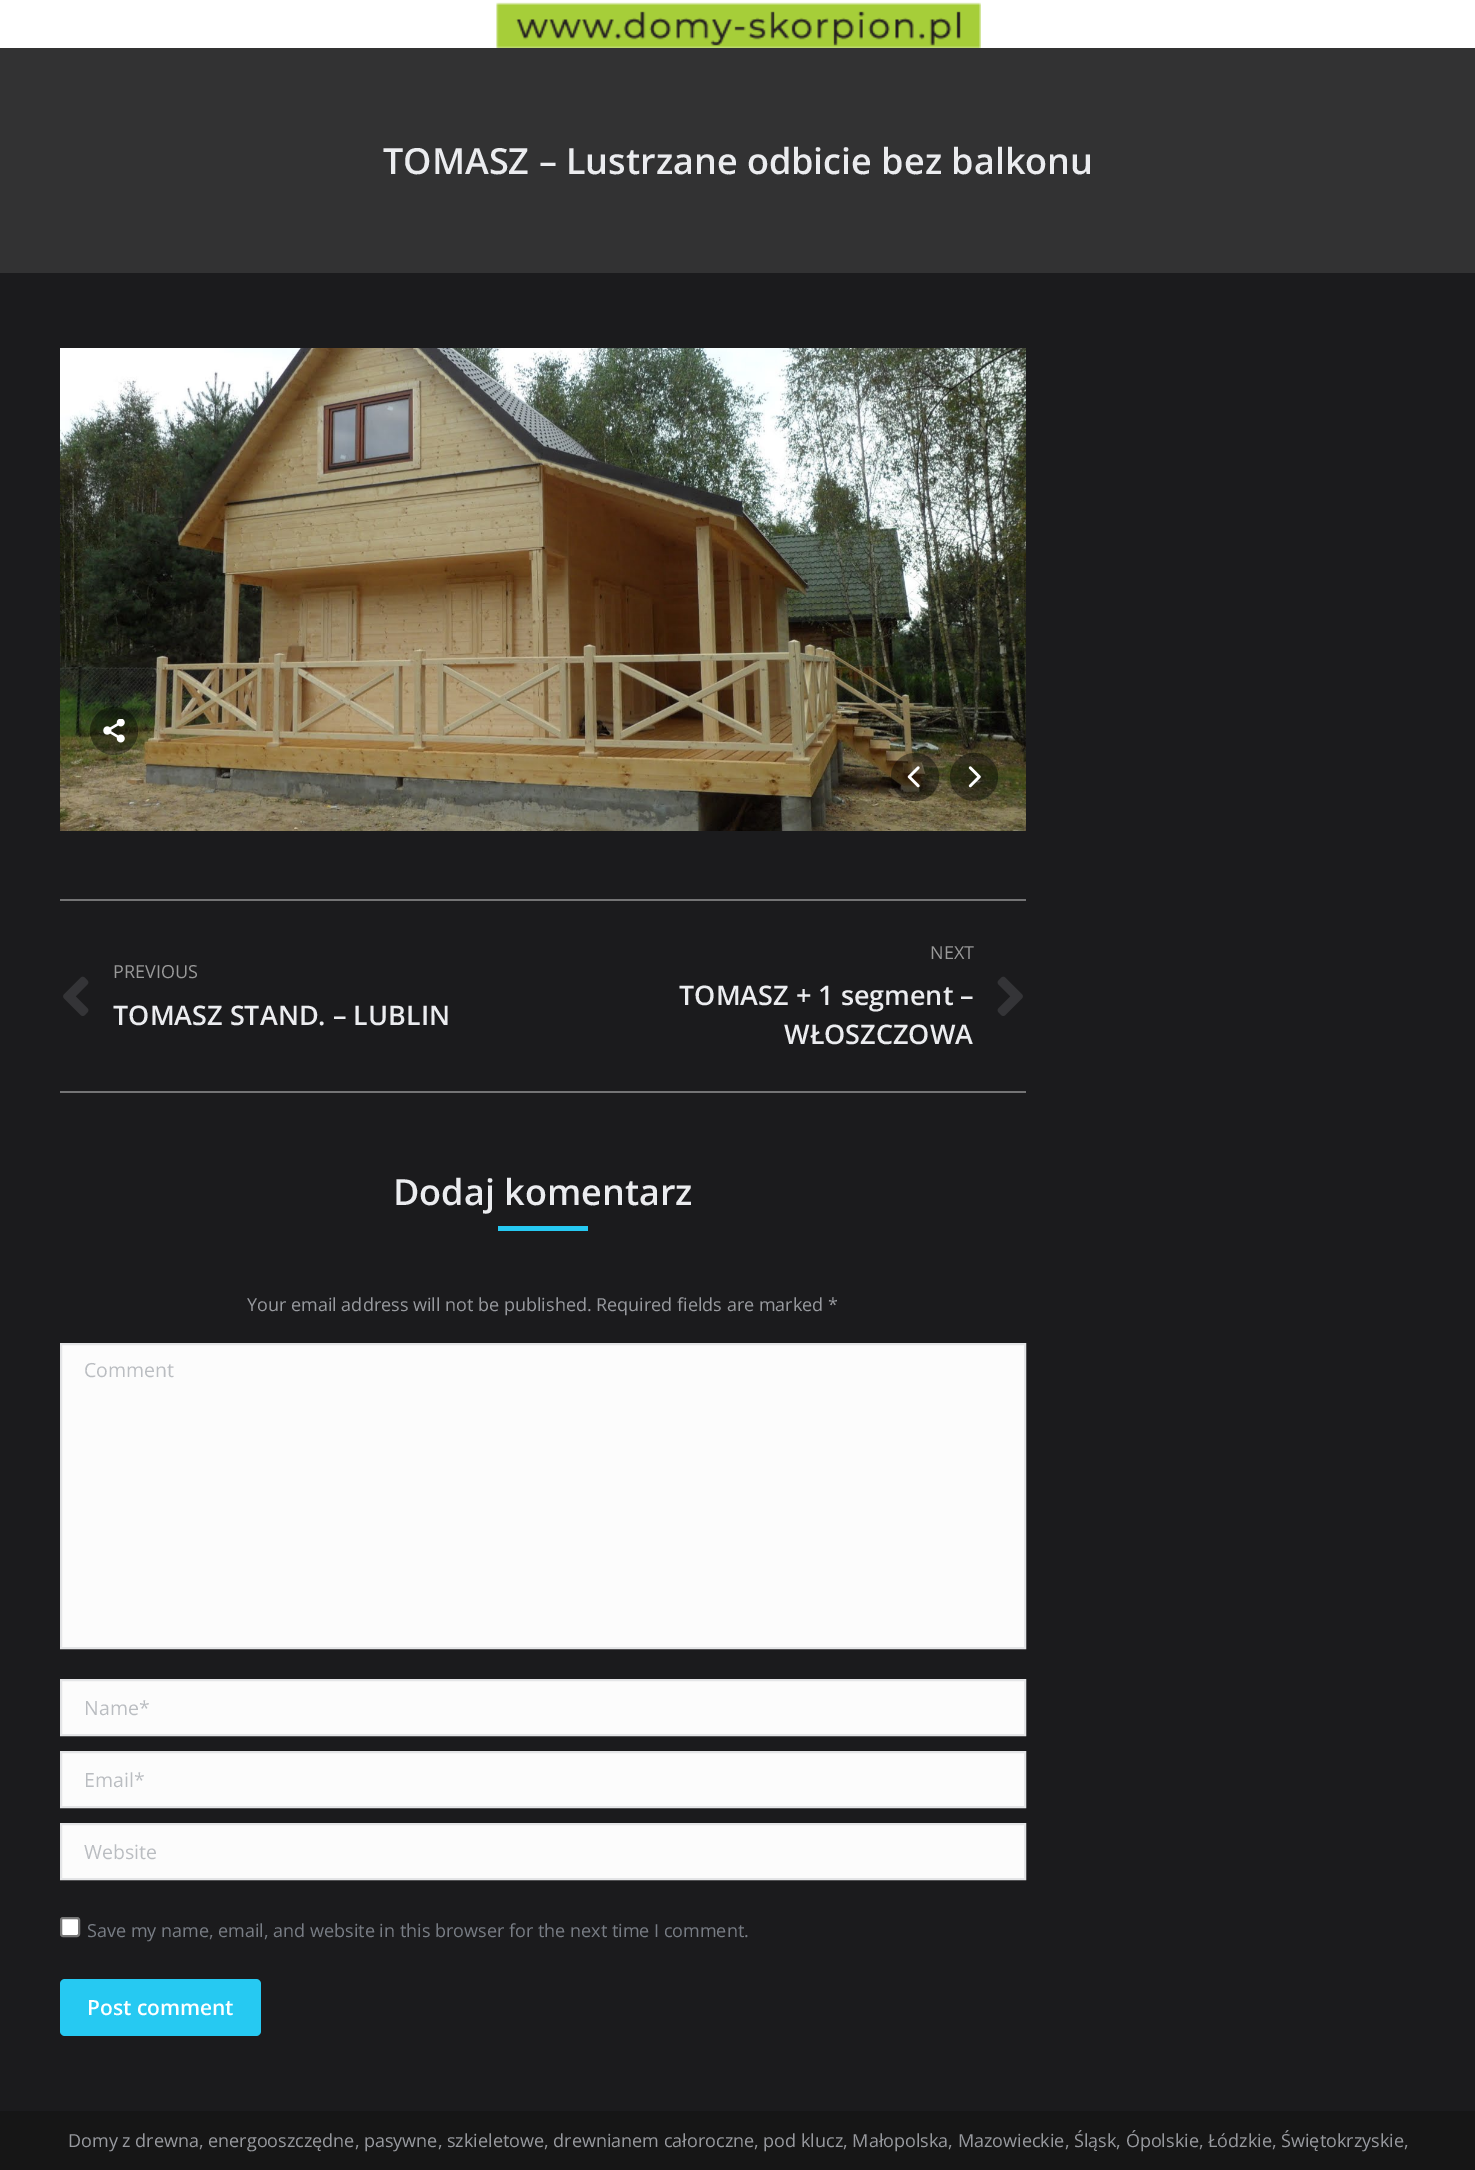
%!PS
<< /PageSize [1475 2170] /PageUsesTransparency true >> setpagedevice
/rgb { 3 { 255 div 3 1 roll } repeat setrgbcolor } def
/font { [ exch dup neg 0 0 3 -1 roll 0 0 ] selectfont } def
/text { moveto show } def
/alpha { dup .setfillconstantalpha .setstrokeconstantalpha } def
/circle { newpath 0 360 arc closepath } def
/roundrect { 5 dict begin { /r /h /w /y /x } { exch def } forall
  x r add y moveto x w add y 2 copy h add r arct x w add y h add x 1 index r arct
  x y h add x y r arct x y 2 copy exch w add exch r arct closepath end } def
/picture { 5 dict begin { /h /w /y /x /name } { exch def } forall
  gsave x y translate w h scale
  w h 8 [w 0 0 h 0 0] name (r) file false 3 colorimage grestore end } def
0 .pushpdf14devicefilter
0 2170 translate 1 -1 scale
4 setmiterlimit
27 27 29 rgb
0 0 1475 2170 rectfill
255 255 255 rgb
0 0 1475 48 rectfill
(img_01.rgb) 496 2 485 46 picture
50 50 51 rgb
0 48 1475 225 rectfill
(img_02.rgb) 60 348 966 483 picture
0.4 alpha
0 0 0 rgb
114 731 24 circle fill
1 alpha
(img_03.rgb) 103 719 22 24 picture
0.4 alpha
915 777 24 circle fill
1 alpha
(img_04.rgb) 907 766 13 22 picture
0.4 alpha
974 777 24 circle fill
1 alpha
(img_05.rgb) 968 766 13 22 picture
116 116 117 rgb
60 899 966 2 rectfill
60 1091 966 2 rectfill
(img_06.rgb) 63 976 26 40 picture
(img_07.rgb) 997 976 26 40 picture
38 201 242 rgb
498 1226 90 5 rectfill
252 252 252 rgb
61 1344 moveto 964 0 rlineto 0 304 rlineto -964 0 rlineto closepath gsave fill grestore
228 229 231 rgb
2 setlinewidth
stroke
252 252 252 rgb
61 1680 moveto 964 0 rlineto 0 55 rlineto -964 0 rlineto closepath gsave fill grestore
228 229 231 rgb
stroke
252 252 252 rgb
61 1752 moveto 964 0 rlineto 0 55 rlineto -964 0 rlineto closepath gsave fill grestore
228 229 231 rgb
stroke
252 252 252 rgb
61 1824 moveto 964 0 rlineto 0 55 rlineto -964 0 rlineto closepath gsave fill grestore
228 229 231 rgb
stroke
255 255 255 rgb
61 1918 18 18 2 roundrect gsave fill grestore
118 118 118 rgb
stroke
38 201 242 rgb
60 1979 201 57 5 roundrect fill
22 22 22 rgb
0 2111 1475 59 rectfill
/OpenSans-SemiBold 36 font
235 236 239 rgb
(TOMASZ – Lustrzane odbicie bez balkonu) 383 174 text
/OpenSans-Regular 18 font
153 153 153 rgb
(PREVIOUS) 113 978 text
/OpenSans-SemiBold 27 font
235 236 239 rgb
(TOMASZ STAND. – LUBLIN) 113 1025 text
/OpenSans-Regular 18 font
153 153 153 rgb
(NEXT) 930 959 text
/OpenSans-SemiBold 27 font
235 236 239 rgb
(TOMASZ + 1 segment –) 679 1005 text
(WŁOSZCZOWA) 784 1044 text
/OpenSans-SemiBold 36 font
(Dodaj komentarz) 393 1205 text
/OpenSans-Regular 18 font
152 154 159 rgb
(Your email address will not be published. Required fields are marked *) 247 1311 text
/OpenSans-Regular 19.5 font
186 189 193 rgb
(Comment) 84 1377 text
(Name*) 84 1715 text
(Email*) 84 1787 text
(Website) 84 1859 text
/OpenSans-Regular 18 font
120 125 133 rgb
(Save my name, email, and website in this browser for the next time I comment.) 87 1937 text
/OpenSans-SemiBold 21 font
255 255 255 rgb
(Post comment) 87 2015 text
/OpenSans-Regular 18 font
152 154 159 rgb
(Domy z drewna, energooszczędne, pasywne, szkieletowe, drewnianem całoroczne, pod klucz, Małopolska, Mazowieckie, Śląsk, Ópolskie, Łódzkie, Świętokrzyskie,) 68 2147 text
.poppdf14devicefilter showpage
